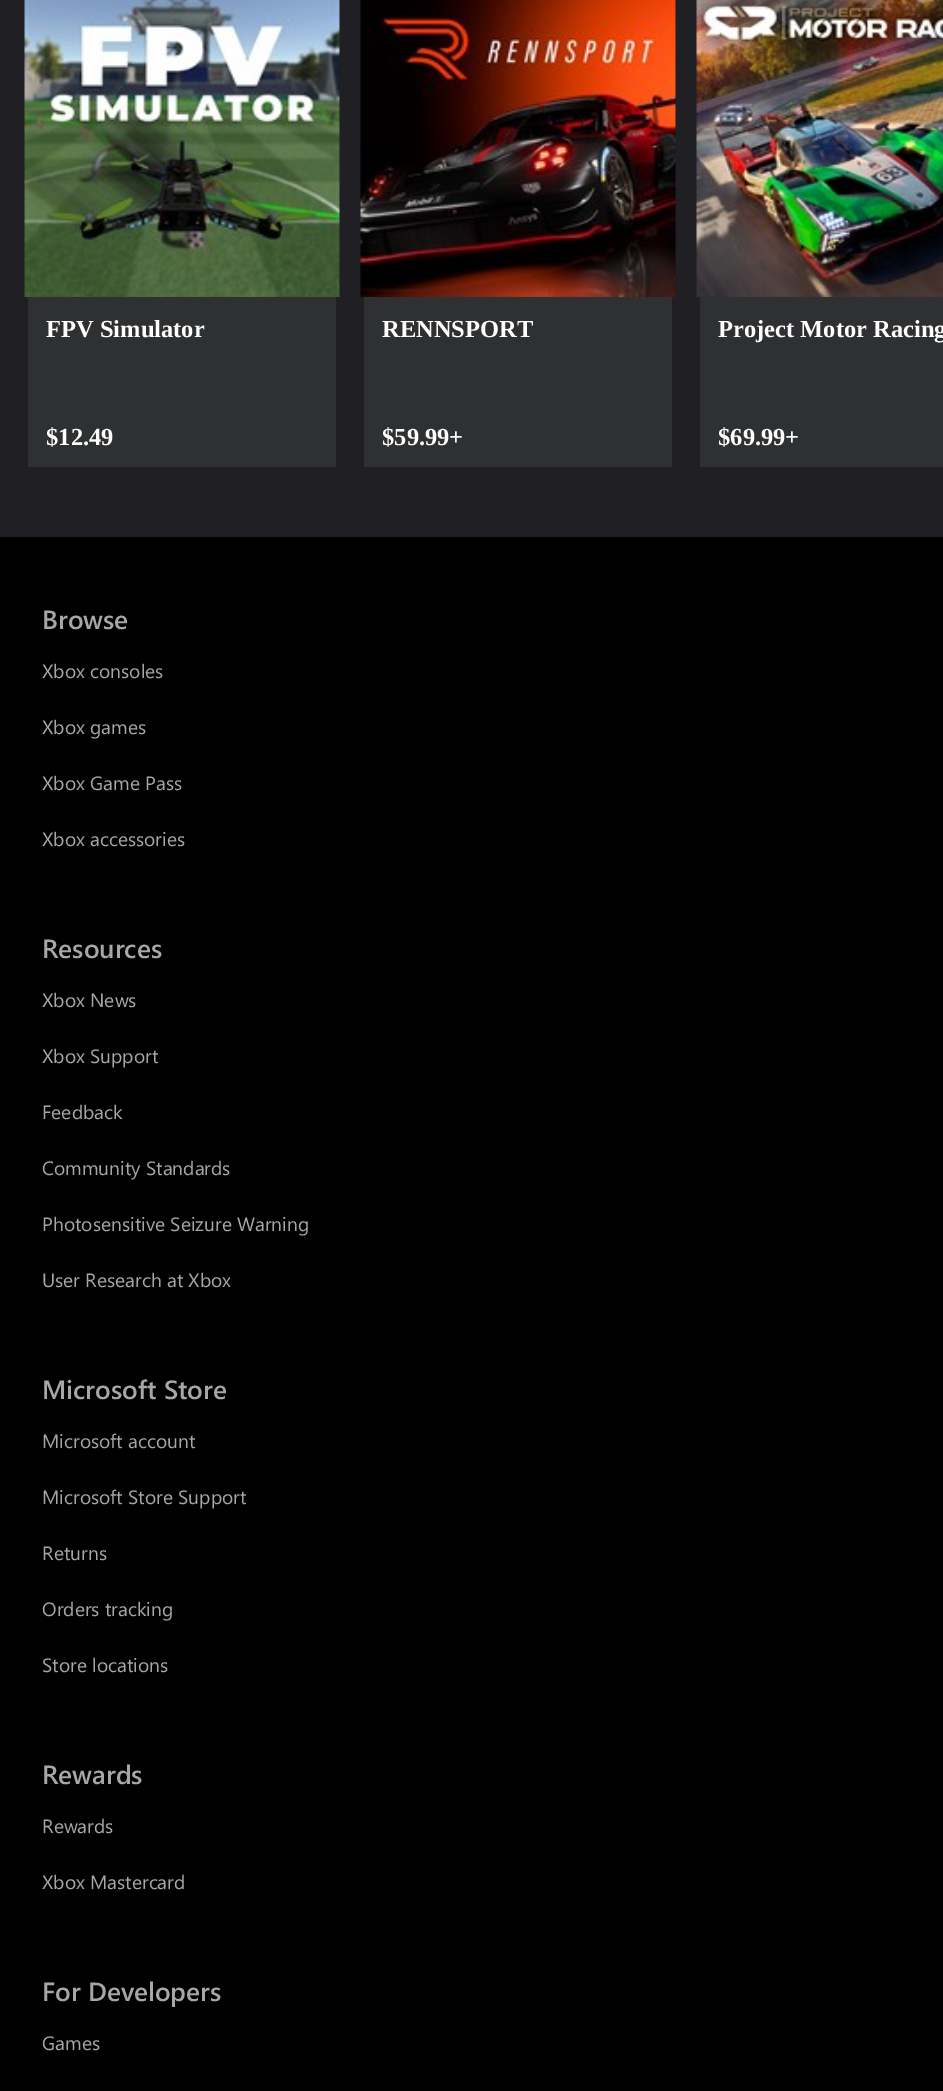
%!PS
<< /PageSize [943 2091] >> setpagedevice
/rgb { 3 { 255 div 3 1 roll } repeat setrgbcolor } def
/font { [ exch dup neg 0 0 3 -1 roll 0 0 ] selectfont } def
/text { moveto show } def
/picture { 5 dict begin { /h /w /y /x /name } { exch def } forall
  gsave x y translate w h scale
  w h 8 [w 0 0 h 0 0] name (r) file false 3 colorimage grestore end } def
0 2091 translate 1 -1 scale
4 setmiterlimit
32 31 36 rgb
0 0 943 2091 rectfill
47 48 50 rgb
28 297 308 170 rectfill
(img_01.rgb) 24 0 316 297 picture
364 297 308 170 rectfill
(img_02.rgb) 360 0 316 297 picture
700 297 243 170 rectfill
(img_03.rgb) 696 0 247 297 picture
0 0 0 rgb
0 537 943 1554 rectfill
/LiberationSerif-Bold 24.5 font
255 255 255 rgb
(FPV Simulator) 46 337 text
($12.49) 46 445 text
(RENNSPORT) 382 337 text
($59.99+) 382 445 text
(Project Motor Racing) 718 337 text
($69.99+) 718 445 text
/SegoeUI-SemiBold 26.25 font
167 167 167 rgb
(Browse) 42 629 text
/SegoeUI-Regular 19.25 font
(Xbox consoles) 42 678 text
(Xbox games) 42 734 text
(Xbox Game Pass) 42 790 text
(Xbox accessories) 42 846 text
/SegoeUI-SemiBold 26.25 font
(Resources) 42 958 text
/SegoeUI-Regular 19.25 font
(Xbox News) 42 1007 text
(Xbox Support) 42 1063 text
(Feedback) 42 1119 text
(Community Standards) 42 1175 text
(Photosensitive Seizure Warning) 42 1231 text
(User Research at Xbox) 42 1287 text
/SegoeUI-SemiBold 26.25 font
(Microsoft Store) 42 1399 text
/SegoeUI-Regular 19.25 font
(Microsoft account) 42 1448 text
(Microsoft Store Support) 42 1504 text
(Returns) 42 1560 text
(Orders tracking) 42 1616 text
(Store locations) 42 1672 text
/SegoeUI-SemiBold 26.25 font
(Rewards) 42 1784 text
/SegoeUI-Regular 19.25 font
(Rewards) 42 1833 text
(Xbox Mastercard) 42 1889 text
/SegoeUI-SemiBold 26.25 font
(For Developers) 42 2001 text
/SegoeUI-Regular 19.25 font
(Games) 42 2050 text
showpage
